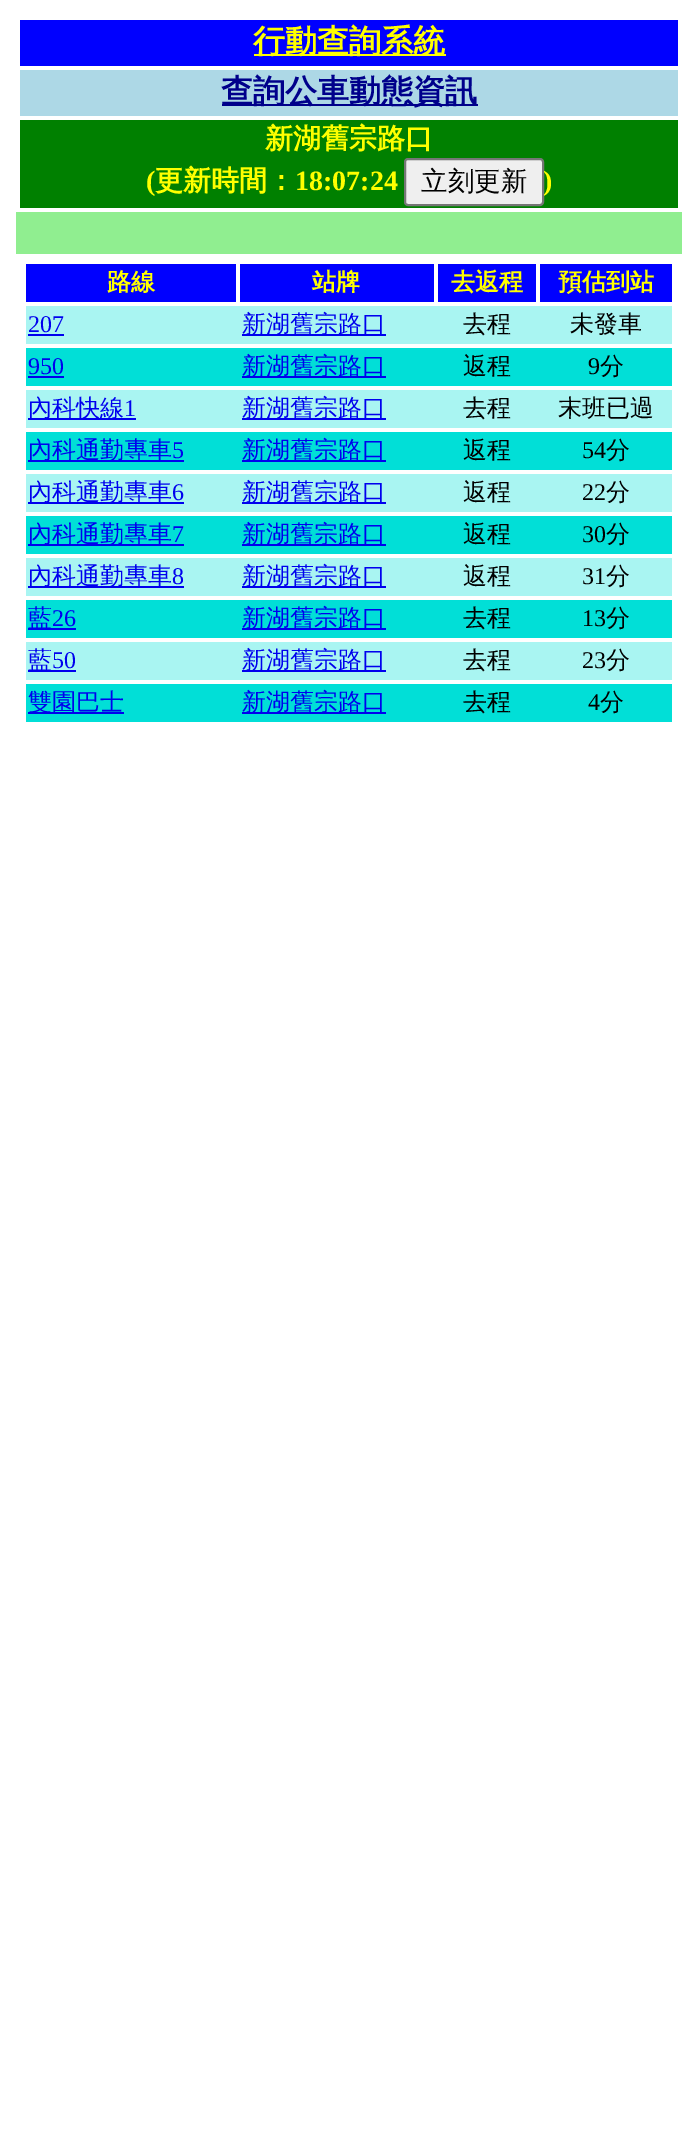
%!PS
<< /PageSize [698 2156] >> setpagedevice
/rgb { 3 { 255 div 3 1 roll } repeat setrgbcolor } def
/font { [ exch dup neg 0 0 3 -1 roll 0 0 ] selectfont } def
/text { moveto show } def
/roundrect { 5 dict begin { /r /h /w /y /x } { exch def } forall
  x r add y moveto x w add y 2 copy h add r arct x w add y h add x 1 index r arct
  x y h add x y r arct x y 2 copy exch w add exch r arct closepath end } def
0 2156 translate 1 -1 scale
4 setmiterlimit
255 255 255 rgb
0 0 698 2156 rectfill
0 0 255 rgb
20 20 658 46 rectfill
255 255 0 rgb
254 54 192 2 rectfill
173 216 230 rgb
20 70 658 46 rectfill
0 0 139 rgb
222 104 256 2 rectfill
0 128 0 rgb
20 120 658 88 rectfill
239 239 239 rgb
405 159 138 46 3 roundrect gsave fill grestore
118 118 118 rgb
2 setlinewidth
stroke
144 238 144 rgb
16 212 666 42 rectfill
0 0 255 rgb
26 264 210 38 rectfill
240 264 194 38 rectfill
438 264 98 38 rectfill
540 264 132 38 rectfill
169 245 242 rgb
26 306 646 38 rectfill
0 0 238 rgb
28 334 36 2 rectfill
242 334 144 2 rectfill
1 223 215 rgb
26 348 646 38 rectfill
0 0 238 rgb
28 376 36 2 rectfill
242 376 144 2 rectfill
169 245 242 rgb
26 390 646 38 rectfill
0 0 238 rgb
28 418 108 2 rectfill
242 418 144 2 rectfill
1 223 215 rgb
26 432 646 38 rectfill
0 0 238 rgb
28 460 156 2 rectfill
242 460 144 2 rectfill
169 245 242 rgb
26 474 646 38 rectfill
0 0 238 rgb
28 502 156 2 rectfill
242 502 144 2 rectfill
1 223 215 rgb
26 516 646 38 rectfill
0 0 238 rgb
28 544 156 2 rectfill
242 544 144 2 rectfill
169 245 242 rgb
26 558 646 38 rectfill
0 0 238 rgb
28 586 156 2 rectfill
242 586 144 2 rectfill
1 223 215 rgb
26 600 646 38 rectfill
0 0 238 rgb
28 628 48 2 rectfill
242 628 144 2 rectfill
169 245 242 rgb
26 642 646 38 rectfill
0 0 238 rgb
28 670 48 2 rectfill
242 670 144 2 rectfill
1 223 215 rgb
26 684 646 38 rectfill
0 0 238 rgb
28 712 96 2 rectfill
242 712 144 2 rectfill
/WenQuanYiZenHei-Bold 32 font
255 255 0 rgb
(行動查詢系統) 253 52 text
0 0 139 rgb
(查詢公車動態資訊) 221 102 text
/WenQuanYiZenHei-Bold 28 font
255 255 0 rgb
(新湖舊宗路口) 265 148 text
/LiberationSerif-Bold 28 font
(\() 146 190 text
/WenQuanYiZenHei-Bold 28 font
(更新時間：) 155 190 text
/LiberationSerif-Bold 28 font
(18:07:24) 295 190 text
/WenQuanYiZenHei-Medium 26.5 font
0 0 0 rgb
(立刻更新) 421 190 text
/LiberationSerif-Bold 28 font
255 255 0 rgb
(\)) 543 190 text
/WenQuanYiZenHei-Bold 24 font
(路線) 107 290 text
(站牌) 312 290 text
(去返程) 451 290 text
(預估到站) 558 290 text
/LiberationSerif-Regular 24 font
0 0 238 rgb
(207) 28 332 text
/WenQuanYiZenHei-Medium 24 font
(新湖舊宗路口) 242 332 text
0 0 0 rgb
(去程) 463 332 text
(未發車) 570 332 text
/LiberationSerif-Regular 24 font
0 0 238 rgb
(950) 28 374 text
/WenQuanYiZenHei-Medium 24 font
(新湖舊宗路口) 242 374 text
0 0 0 rgb
(返程) 463 374 text
/LiberationSerif-Regular 24 font
(9) 588 374 text
/WenQuanYiZenHei-Medium 24 font
(分) 600 374 text
0 0 238 rgb
(內科快線) 28 416 text
/LiberationSerif-Regular 24 font
(1) 124 416 text
/WenQuanYiZenHei-Medium 24 font
(新湖舊宗路口) 242 416 text
0 0 0 rgb
(去程) 463 416 text
(末班已過) 558 416 text
0 0 238 rgb
(內科通勤專車) 28 458 text
/LiberationSerif-Regular 24 font
(5) 172 458 text
/WenQuanYiZenHei-Medium 24 font
(新湖舊宗路口) 242 458 text
0 0 0 rgb
(返程) 463 458 text
/LiberationSerif-Regular 24 font
(54) 582 458 text
/WenQuanYiZenHei-Medium 24 font
(分) 606 458 text
0 0 238 rgb
(內科通勤專車) 28 500 text
/LiberationSerif-Regular 24 font
(6) 172 500 text
/WenQuanYiZenHei-Medium 24 font
(新湖舊宗路口) 242 500 text
0 0 0 rgb
(返程) 463 500 text
/LiberationSerif-Regular 24 font
(22) 582 500 text
/WenQuanYiZenHei-Medium 24 font
(分) 606 500 text
0 0 238 rgb
(內科通勤專車) 28 542 text
/LiberationSerif-Regular 24 font
(7) 172 542 text
/WenQuanYiZenHei-Medium 24 font
(新湖舊宗路口) 242 542 text
0 0 0 rgb
(返程) 463 542 text
/LiberationSerif-Regular 24 font
(30) 582 542 text
/WenQuanYiZenHei-Medium 24 font
(分) 606 542 text
0 0 238 rgb
(內科通勤專車) 28 584 text
/LiberationSerif-Regular 24 font
(8) 172 584 text
/WenQuanYiZenHei-Medium 24 font
(新湖舊宗路口) 242 584 text
0 0 0 rgb
(返程) 463 584 text
/LiberationSerif-Regular 24 font
(31) 582 584 text
/WenQuanYiZenHei-Medium 24 font
(分) 606 584 text
0 0 238 rgb
(藍) 28 626 text
/LiberationSerif-Regular 24 font
(26) 52 626 text
/WenQuanYiZenHei-Medium 24 font
(新湖舊宗路口) 242 626 text
0 0 0 rgb
(去程) 463 626 text
/LiberationSerif-Regular 24 font
(13) 582 626 text
/WenQuanYiZenHei-Medium 24 font
(分) 606 626 text
0 0 238 rgb
(藍) 28 668 text
/LiberationSerif-Regular 24 font
(50) 52 668 text
/WenQuanYiZenHei-Medium 24 font
(新湖舊宗路口) 242 668 text
0 0 0 rgb
(去程) 463 668 text
/LiberationSerif-Regular 24 font
(23) 582 668 text
/WenQuanYiZenHei-Medium 24 font
(分) 606 668 text
0 0 238 rgb
(雙園巴士) 28 710 text
(新湖舊宗路口) 242 710 text
0 0 0 rgb
(去程) 463 710 text
/LiberationSerif-Regular 24 font
(4) 588 710 text
/WenQuanYiZenHei-Medium 24 font
(分) 600 710 text
showpage
